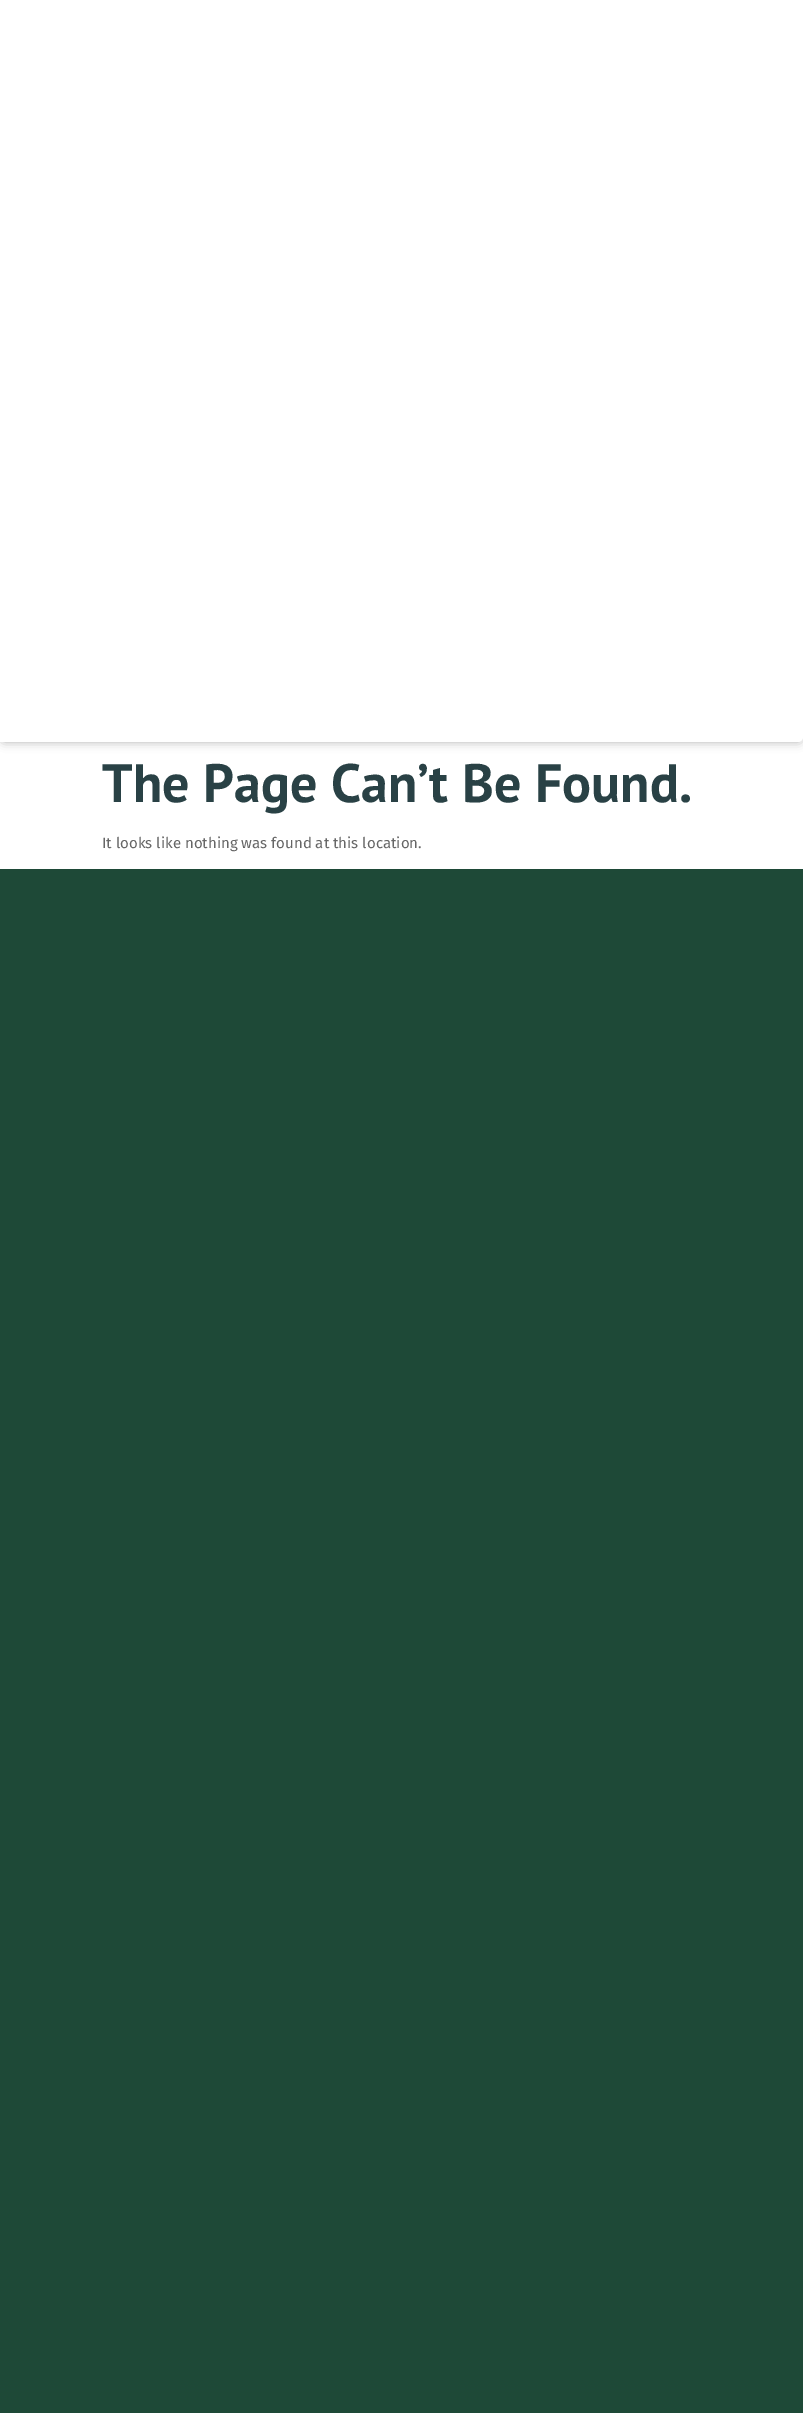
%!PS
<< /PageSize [803 2413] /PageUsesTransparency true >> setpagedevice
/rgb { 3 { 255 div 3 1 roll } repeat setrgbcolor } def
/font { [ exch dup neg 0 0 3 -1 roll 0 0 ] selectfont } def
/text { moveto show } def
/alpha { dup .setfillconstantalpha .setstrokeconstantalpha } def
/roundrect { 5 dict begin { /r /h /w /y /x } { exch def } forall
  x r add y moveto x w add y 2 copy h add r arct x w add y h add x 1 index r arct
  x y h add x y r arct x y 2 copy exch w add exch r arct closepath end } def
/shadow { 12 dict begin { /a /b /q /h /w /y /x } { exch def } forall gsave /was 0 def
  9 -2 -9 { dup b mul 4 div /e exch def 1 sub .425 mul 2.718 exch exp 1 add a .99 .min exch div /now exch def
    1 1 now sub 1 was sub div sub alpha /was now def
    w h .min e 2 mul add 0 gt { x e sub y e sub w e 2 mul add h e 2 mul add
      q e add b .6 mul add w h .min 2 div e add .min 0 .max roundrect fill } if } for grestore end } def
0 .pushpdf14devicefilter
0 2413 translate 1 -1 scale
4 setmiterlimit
255 255 255 rgb
0 0 803 2413 rectfill
0 0 0 rgb
0 0 803 742 5 5 0.3 shadow
255 255 255 rgb
0 0 moveto 803 0 rlineto 0 737 rlineto 0 3 -2 5 -5 5 rcurveto -798 0 rlineto closepath fill
30 73 55 rgb
0 869 803 1544 rectfill
/PTSans-Bold 54 font
41 65 69 rgb
(The Page Can’t Be Found.) 102 802 text
/FiraSans-Regular 15 font
102 102 102 rgb
(It looks like nothing was found at this location.) 102 848 text
.poppdf14devicefilter showpage
